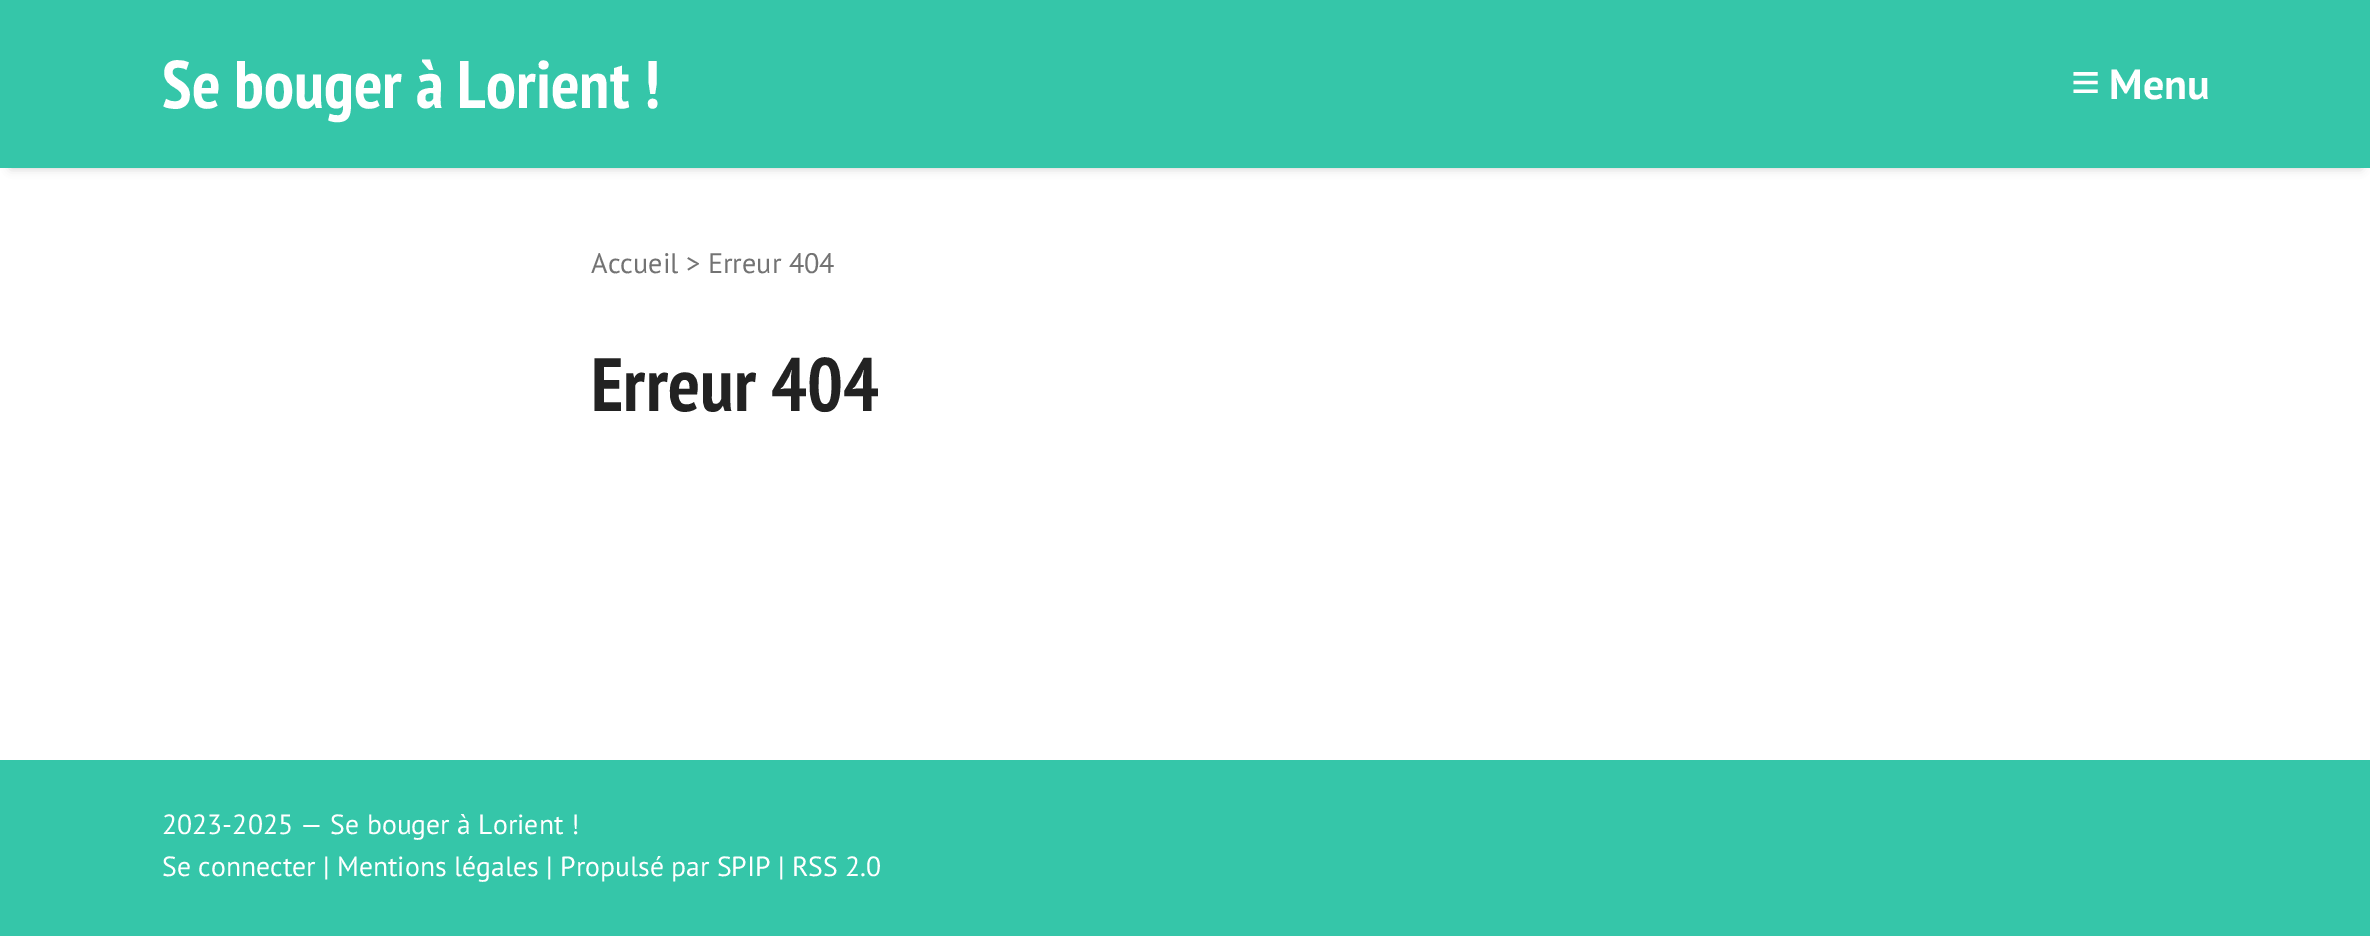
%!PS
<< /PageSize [2370 936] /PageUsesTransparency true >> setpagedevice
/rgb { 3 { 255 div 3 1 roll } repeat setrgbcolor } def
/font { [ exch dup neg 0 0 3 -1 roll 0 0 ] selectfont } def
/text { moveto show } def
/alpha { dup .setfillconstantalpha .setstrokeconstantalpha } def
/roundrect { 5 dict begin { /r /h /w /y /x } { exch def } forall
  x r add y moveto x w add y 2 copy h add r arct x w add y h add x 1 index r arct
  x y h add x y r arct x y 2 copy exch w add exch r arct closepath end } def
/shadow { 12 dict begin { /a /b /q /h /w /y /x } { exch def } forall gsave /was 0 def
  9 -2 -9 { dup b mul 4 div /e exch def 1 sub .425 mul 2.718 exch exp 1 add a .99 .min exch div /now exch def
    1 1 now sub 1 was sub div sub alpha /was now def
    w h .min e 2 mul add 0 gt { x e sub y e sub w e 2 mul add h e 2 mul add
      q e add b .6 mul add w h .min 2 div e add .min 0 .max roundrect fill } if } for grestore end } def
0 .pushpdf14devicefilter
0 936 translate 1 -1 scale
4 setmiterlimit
255 255 255 rgb
0 0 2370 936 rectfill
0 0 0 rgb
11 21 2350 147 0 5 0.2 shadow
53 198 169 rgb
0 0 2370 168 rectfill
0 760 2370 176 rectfill
/PTSansNarrow-Bold 67.25 font
255 255 255 rgb
(Se bouger à Lorient !) 162 108 text
/LiberationSans-Bold 50 font
(≡) 2071 99 text
/PTSans-Bold 42 font
(Menu) 2109 99 text
/PTSans-Regular 28.25 font
115 115 115 rgb
(Accueil > Erreur 404) 591 273 text
/PTSansNarrow-Bold 75.5 font
34 34 34 rgb
(Erreur 404) 591 411 text
/PTSans-Regular 27.75 font
255 255 255 rgb
(2023-2025 — Se bouger à Lorient !) 162 834 text
(Se connecter | Mentions légales | Propulsé par SPIP | RSS 2.0) 162 876 text
.poppdf14devicefilter showpage
